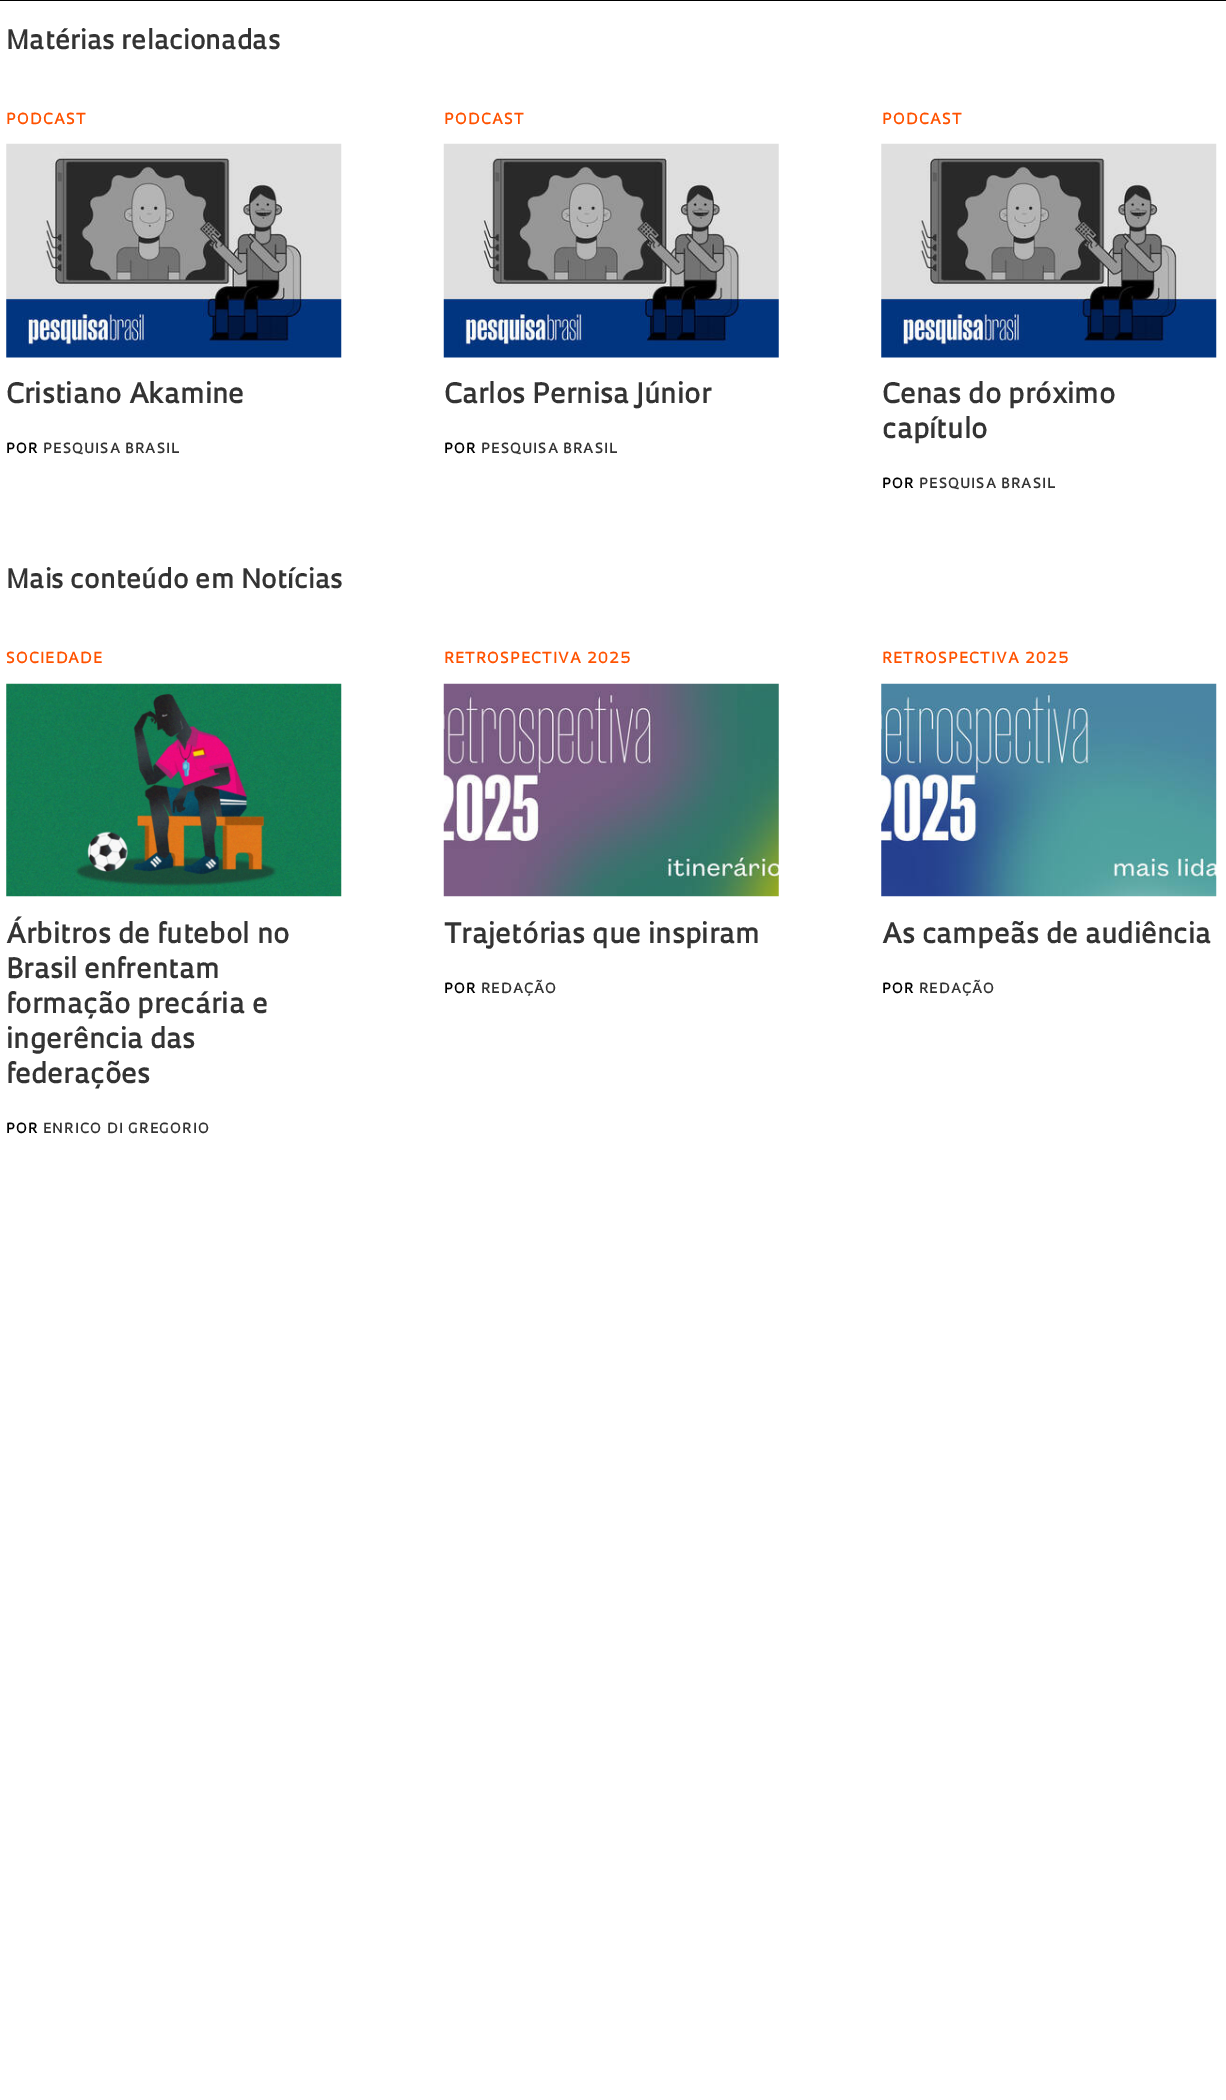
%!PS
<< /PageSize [1226 2100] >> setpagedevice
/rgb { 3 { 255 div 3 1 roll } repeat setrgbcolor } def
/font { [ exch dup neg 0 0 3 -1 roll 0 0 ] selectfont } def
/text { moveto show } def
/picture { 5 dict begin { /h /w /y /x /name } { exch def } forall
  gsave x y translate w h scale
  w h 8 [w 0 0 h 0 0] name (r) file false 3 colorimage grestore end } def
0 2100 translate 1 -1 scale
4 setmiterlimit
255 255 255 rgb
0 0 1226 2100 rectfill
0 0 0 rgb
0 0 1226 1 rectfill
(img_01.rgb) 6 143 336 215 picture
(img_02.rgb) 443 143 336 215 picture
(img_01.rgb) 881 143 336 215 picture
(img_03.rgb) 6 683 336 214 picture
(img_04.rgb) 443 683 336 214 picture
(img_05.rgb) 881 683 336 214 picture
/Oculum-SemiBold 26.25 font
51 51 51 rgb
(Matérias relacionadas) 6 49 text
/Oculum-SemiBold 15 font
255 82 0 rgb
6 124 moveto 1.25 0 (PODCAST) ashow
/Oculum-SemiBold 27.5 font
51 51 51 rgb
(Cristiano Akamine) 6 403 text
/Oculum-SemiBold 13.75 font
0 0 0 rgb
6 453 moveto 1.25 0 (POR) ashow
51 51 51 rgb
43 453 moveto 1.25 0 (PESQUISA BRASIL) ashow
/Oculum-SemiBold 15 font
255 82 0 rgb
444 124 moveto 1.25 0 (PODCAST) ashow
/Oculum-SemiBold 27.5 font
51 51 51 rgb
(Carlos Pernisa Júnior) 444 403 text
/Oculum-SemiBold 13.75 font
0 0 0 rgb
444 453 moveto 1.25 0 (POR) ashow
51 51 51 rgb
481 453 moveto 1.25 0 (PESQUISA BRASIL) ashow
/Oculum-SemiBold 15 font
255 82 0 rgb
882 124 moveto 1.25 0 (PODCAST) ashow
/Oculum-SemiBold 27.5 font
51 51 51 rgb
(Cenas do próximo) 882 403 text
(capítulo) 882 438 text
/Oculum-SemiBold 13.75 font
0 0 0 rgb
882 488 moveto 1.25 0 (POR) ashow
51 51 51 rgb
919 488 moveto 1.25 0 (PESQUISA BRASIL) ashow
/Oculum-SemiBold 26.25 font
(Mais conteúdo em Notícias) 6 588 text
/Oculum-SemiBold 15 font
255 82 0 rgb
6 663 moveto 1.25 0 (SOCIEDADE) ashow
/Oculum-SemiBold 27.5 font
51 51 51 rgb
(Árbitros de futebol no) 6 943 text
(Brasil enfrentam) 6 978 text
(formação precária e) 6 1013 text
(ingerência das) 6 1048 text
(federações) 6 1083 text
/Oculum-SemiBold 13.75 font
0 0 0 rgb
6 1133 moveto 1.25 0 (POR) ashow
51 51 51 rgb
43 1133 moveto 1.25 0 (ENRICO DI GREGORIO) ashow
/Oculum-SemiBold 15 font
255 82 0 rgb
444 663 moveto 1.25 0 (RETROSPECTIVA 2025) ashow
/Oculum-SemiBold 27.5 font
51 51 51 rgb
(Trajetórias que inspiram) 444 943 text
/Oculum-SemiBold 13.75 font
0 0 0 rgb
444 993 moveto 1.25 0 (POR) ashow
51 51 51 rgb
481 993 moveto 1.25 0 (REDAÇÃO) ashow
/Oculum-SemiBold 15 font
255 82 0 rgb
882 663 moveto 1.25 0 (RETROSPECTIVA 2025) ashow
/Oculum-SemiBold 27.5 font
51 51 51 rgb
(As campeãs de audiência) 882 943 text
/Oculum-SemiBold 13.75 font
0 0 0 rgb
882 993 moveto 1.25 0 (POR) ashow
51 51 51 rgb
919 993 moveto 1.25 0 (REDAÇÃO) ashow
showpage
